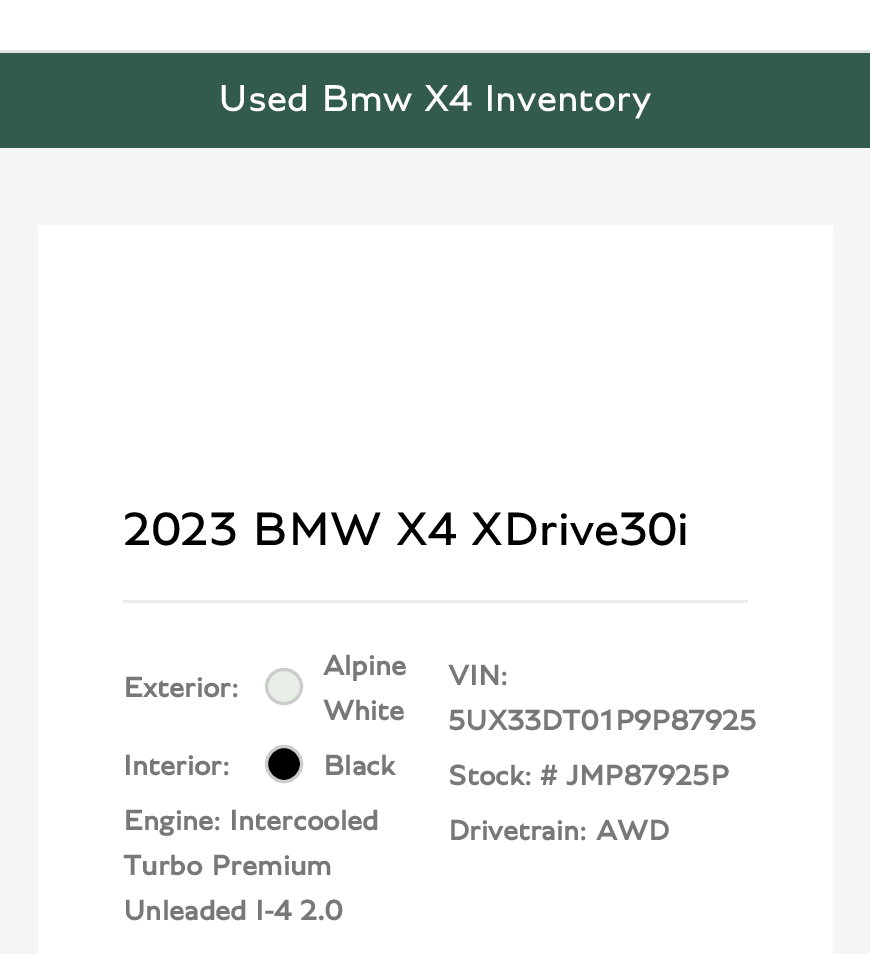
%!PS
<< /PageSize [870 954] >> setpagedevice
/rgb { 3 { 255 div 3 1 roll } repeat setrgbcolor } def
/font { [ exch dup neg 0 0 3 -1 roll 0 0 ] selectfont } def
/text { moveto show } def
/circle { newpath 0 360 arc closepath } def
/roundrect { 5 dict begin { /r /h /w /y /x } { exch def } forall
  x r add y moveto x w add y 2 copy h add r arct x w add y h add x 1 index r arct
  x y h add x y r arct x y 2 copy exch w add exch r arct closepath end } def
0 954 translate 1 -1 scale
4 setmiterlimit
255 255 255 rgb
0 0 870 954 rectfill
245 245 245 rgb
0 148 870 806 rectfill
51 91 76 rgb
0 53 870 95 rectfill
222 226 230 rgb
0 50 870 3 rectfill
255 255 255 rgb
38 225 795 729 rectfill
237 237 237 rgb
123 600 625 3 rectfill
233 238 232 rgb
266.5 669.5 35 34 17 roundrect gsave fill grestore
204 204 204 rgb
3 setlinewidth
stroke
0 0 0 rgb
284 764 17.5 circle gsave fill grestore
204 204 204 rgb
stroke
/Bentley-Regular 40 font
255 255 255 rgb
(Used Bmw X4 Inventory) 218 111 text
/Bentley-Regular 50 font
0 0 0 rgb
(2023 BMW X4 XDrive30i) 123 545 text
/Bentley-Bold 30 font
121 120 120 rgb
(Exterior:) 123 697 text
(Alpine) 323 675 text
(White) 323 720 text
(Interior:) 123 775 text
(Black) 323 775 text
(Engine: Intercooled) 123 830 text
(Turbo Premium) 123 875 text
(Unleaded I-4 2.0) 123 920 text
(VIN:) 448 685 text
(5UX33DT01P9P87925) 448 730 text
(Stock: # JMP87925P) 448 785 text
(Drivetrain: AWD) 448 840 text
showpage
